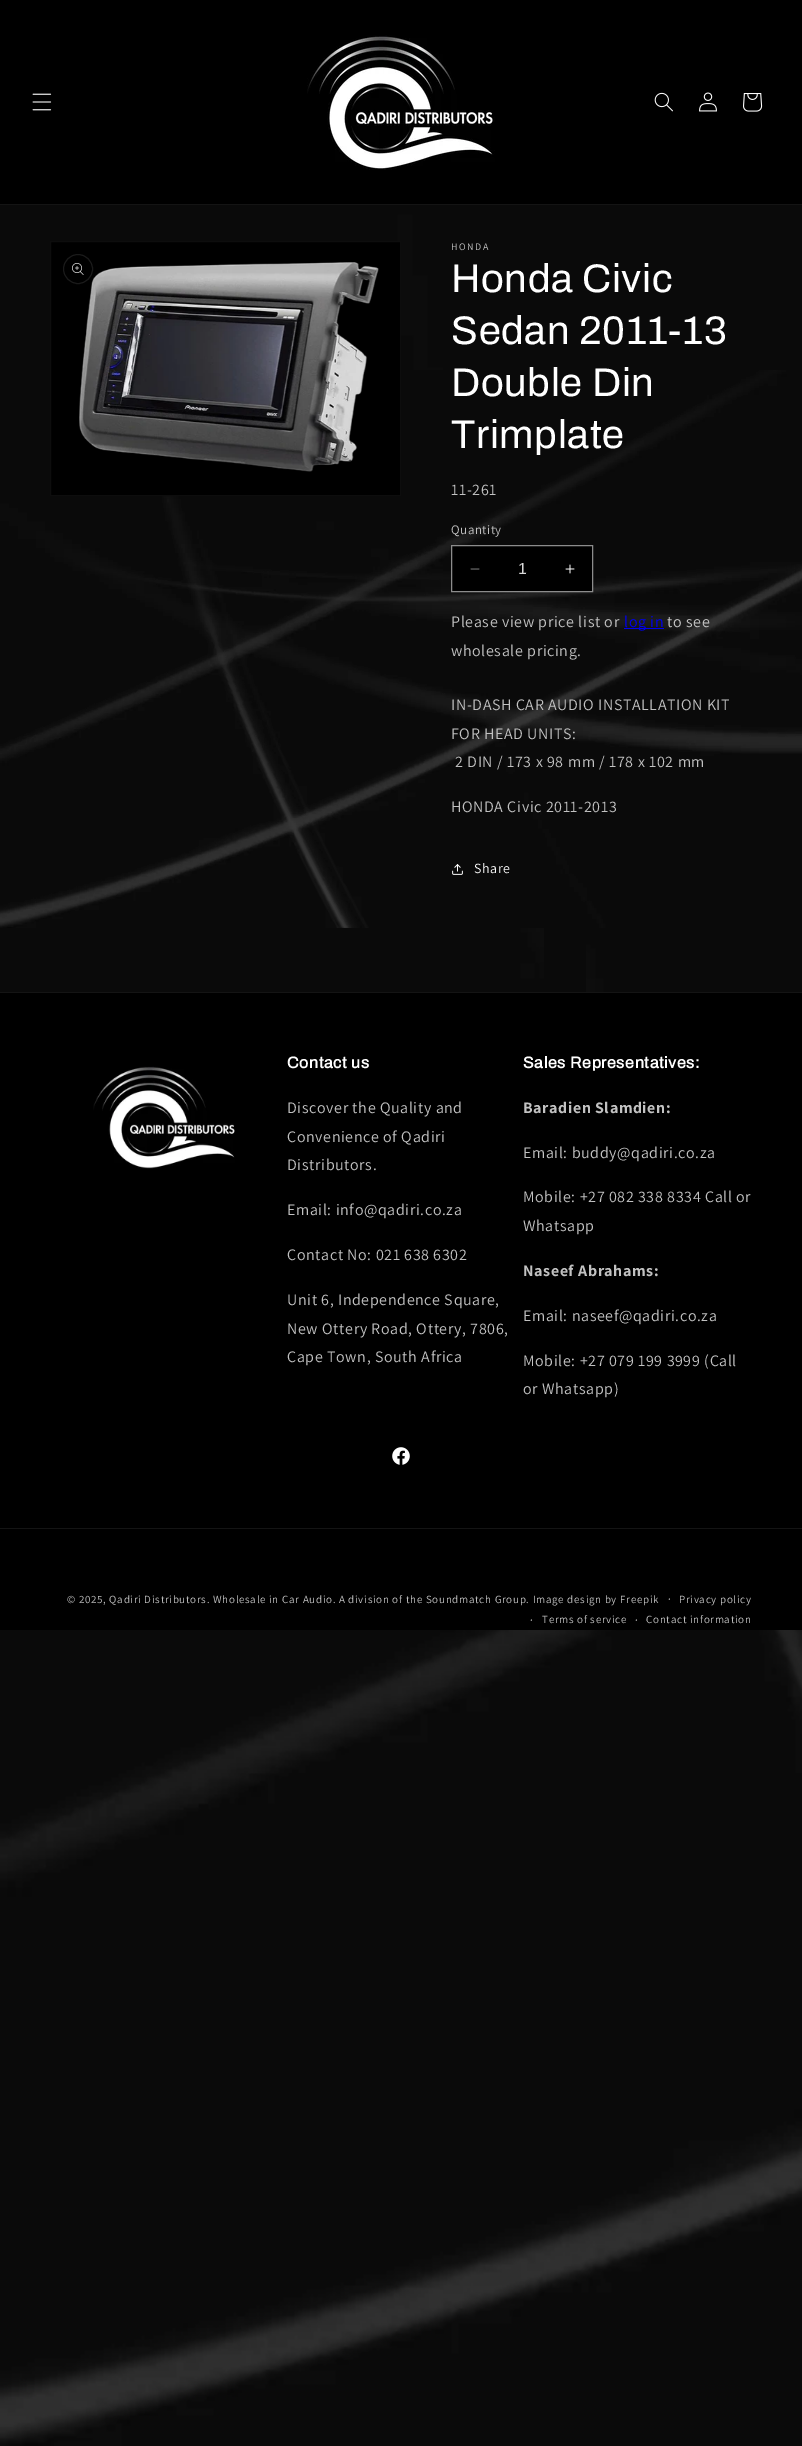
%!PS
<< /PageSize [802 2446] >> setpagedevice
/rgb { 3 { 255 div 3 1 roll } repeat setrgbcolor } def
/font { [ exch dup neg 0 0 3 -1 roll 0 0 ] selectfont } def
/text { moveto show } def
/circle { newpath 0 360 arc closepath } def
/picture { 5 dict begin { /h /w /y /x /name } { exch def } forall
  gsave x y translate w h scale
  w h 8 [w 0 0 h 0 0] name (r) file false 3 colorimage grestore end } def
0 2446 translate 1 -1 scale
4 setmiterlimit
255 255 255 rgb
0 0 802 2446 rectfill
(img_01.rgb) 0 205 802 2241 picture
0 0 0 rgb
0 0 802 204 rectfill
20 20 20 rgb
0 204 802 1 rectfill
(img_02.rgb) 32 93 20 18 picture
(img_03.rgb) 307 35 188 135 picture
(img_04.rgb) 654 92 19 20 picture
(img_05.rgb) 699 92 18 20 picture
(img_06.rgb) 743 93 20 19 picture
(img_07.rgb) 0 370 802 558 picture
0 0 0 rgb
50.5 241.5 moveto 350 0 rlineto 0 254 rlineto -350 0 rlineto closepath gsave fill grestore
13 13 13 rgb
stroke
(img_09.rgb) 79 262 300 210 picture
26 26 26 rgb
78 269 14.5 circle stroke
(img_08.rgb) 72 263 12 12 picture
0 0 0 rgb
452 546 140 45 rectfill
(img_10.rgb) 470 568 10 2 picture
(img_11.rgb) 565 564 10 10 picture
140 140 140 rgb
451.5 545.5 141 46 rectstroke
0 0 238 rgb
624 628 40 1 rectfill
(img_12.rgb) 452 864 11 11 picture
10 10 10 rgb
544 928 42 64 rectfill
0 0 0 rgb
0 993 802 637 rectfill
20 20 20 rgb
0 992 802 1 rectfill
(img_13.rgb) 93 1066 142 103 picture
(img_14.rgb) 392 1447 18 18 picture
0 1528 802 1 rectfill
/Assistant-Regular 10 font
194 194 194 rgb
451 250 moveto 1.5 0 (HONDA) ashow
/Archivo-Regular 40 font
255 255 255 rgb
451 292 moveto 0.6 0 (Honda Civic) ashow
451 344 moveto 0.6 0 (Sedan 2011-13) ashow
451 396 moveto 0.6 0 (Double Din) ashow
451 448 moveto 0.6 0 (Trimplate) ashow
/Assistant-Regular 16 font
194 194 194 rgb
451 495 moveto 0.6 0 (11-261) ashow
/Assistant-Regular 13 font
451 534 moveto 0.5 0 (Quantity) ashow
/LiberationSans-Regular 16 font
217 217 217 rgb
(1) 518 574 text
/Assistant-Regular 16 font
194 194 194 rgb
451 627 moveto 0.6 0 (Please view price list or) ashow
0 0 238 rgb
624 627 moveto 0.6 0 (log in) ashow
200 200 200 rgb
667 627 moveto 0.6 0 (to see) ashow
194 194 194 rgb
451 656 moveto 0.6 0 (wholesale pricing.) ashow
451 710 moveto 0.6 0 (IN-DASH CAR AUDIO INSTALLATION KIT) ashow
451 739 moveto 0.6 0 (FOR HEAD UNITS:) ashow
455 767 moveto 0.6 0 (2 DIN / 173 x 98 mm / 178 x 102 mm) ashow
451 812 moveto 0.6 0 (HONDA Civic 2011-2013) ashow
/Assistant-Regular 14 font
255 255 255 rgb
474 873 moveto 0.6 0 (Share) ashow
/Archivo-Bold 16 font
287 1068 moveto 0.6 0 (Contact us) ashow
/Assistant-Regular 16 font
194 194 194 rgb
287 1113 moveto 0.6 0 (Discover the Quality and) ashow
287 1142 moveto 0.6 0 (Convenience of Qadiri) ashow
287 1170 moveto 0.6 0 (Distributors.) ashow
287 1215 moveto 0.6 0 (Email: info@qadiri.co.za) ashow
287 1260 moveto 0.6 0 (Contact No: 021 638 6302) ashow
287 1305 moveto 0.6 0 (Unit 6, Independence Square,) ashow
287 1334 moveto 0.6 0 (New Ottery Road, Ottery, 7806,) ashow
287 1362 moveto 0.6 0 (Cape Town, South Africa) ashow
/Archivo-Bold 16 font
255 255 255 rgb
523 1068 moveto 0.6 0 (Sales Representatives:) ashow
/Assistant-Bold 16 font
194 194 194 rgb
523 1113 moveto 0.6 0 (Baradien Slamdien:) ashow
/Assistant-Regular 16 font
523 1158 moveto 0.6 0 (Email: buddy@qadiri.co.za) ashow
523 1202 moveto 0.6 0 (Mobile: +27 082 338 8334 Call or) ashow
523 1231 moveto 0.6 0 (Whatsapp) ashow
/Assistant-Bold 16 font
523 1276 moveto 0.6 0 (Naseef Abrahams:) ashow
/Assistant-Regular 16 font
523 1321 moveto 0.6 0 (Email: naseef@qadiri.co.za) ashow
523 1366 moveto 0.6 0 (Mobile: +27 079 199 3999 \(Call) ashow
523 1394 moveto 0.6 0 (or Whatsapp\)) ashow
/Assistant-Regular 11 font
67 1603 moveto 0.7 0 (© 2025, Qadiri Distributors. Wholesale in Car Audio. A division of the Soundmatch Group. Image design by Freepik) ashow
/Assistant-Regular 12 font
668 1603 moveto 0.7 0 (·) ashow
/Assistant-Regular 11 font
679 1603 moveto 0.7 0 (Privacy policy) ashow
/Assistant-Regular 12 font
530 1624 moveto 0.7 0 (·) ashow
/Assistant-Regular 11 font
542 1623 moveto 0.7 0 (Terms of service) ashow
/Assistant-Regular 12 font
635 1624 moveto 0.7 0 (·) ashow
/Assistant-Regular 11 font
646 1623 moveto 0.7 0 (Contact information) ashow
showpage
